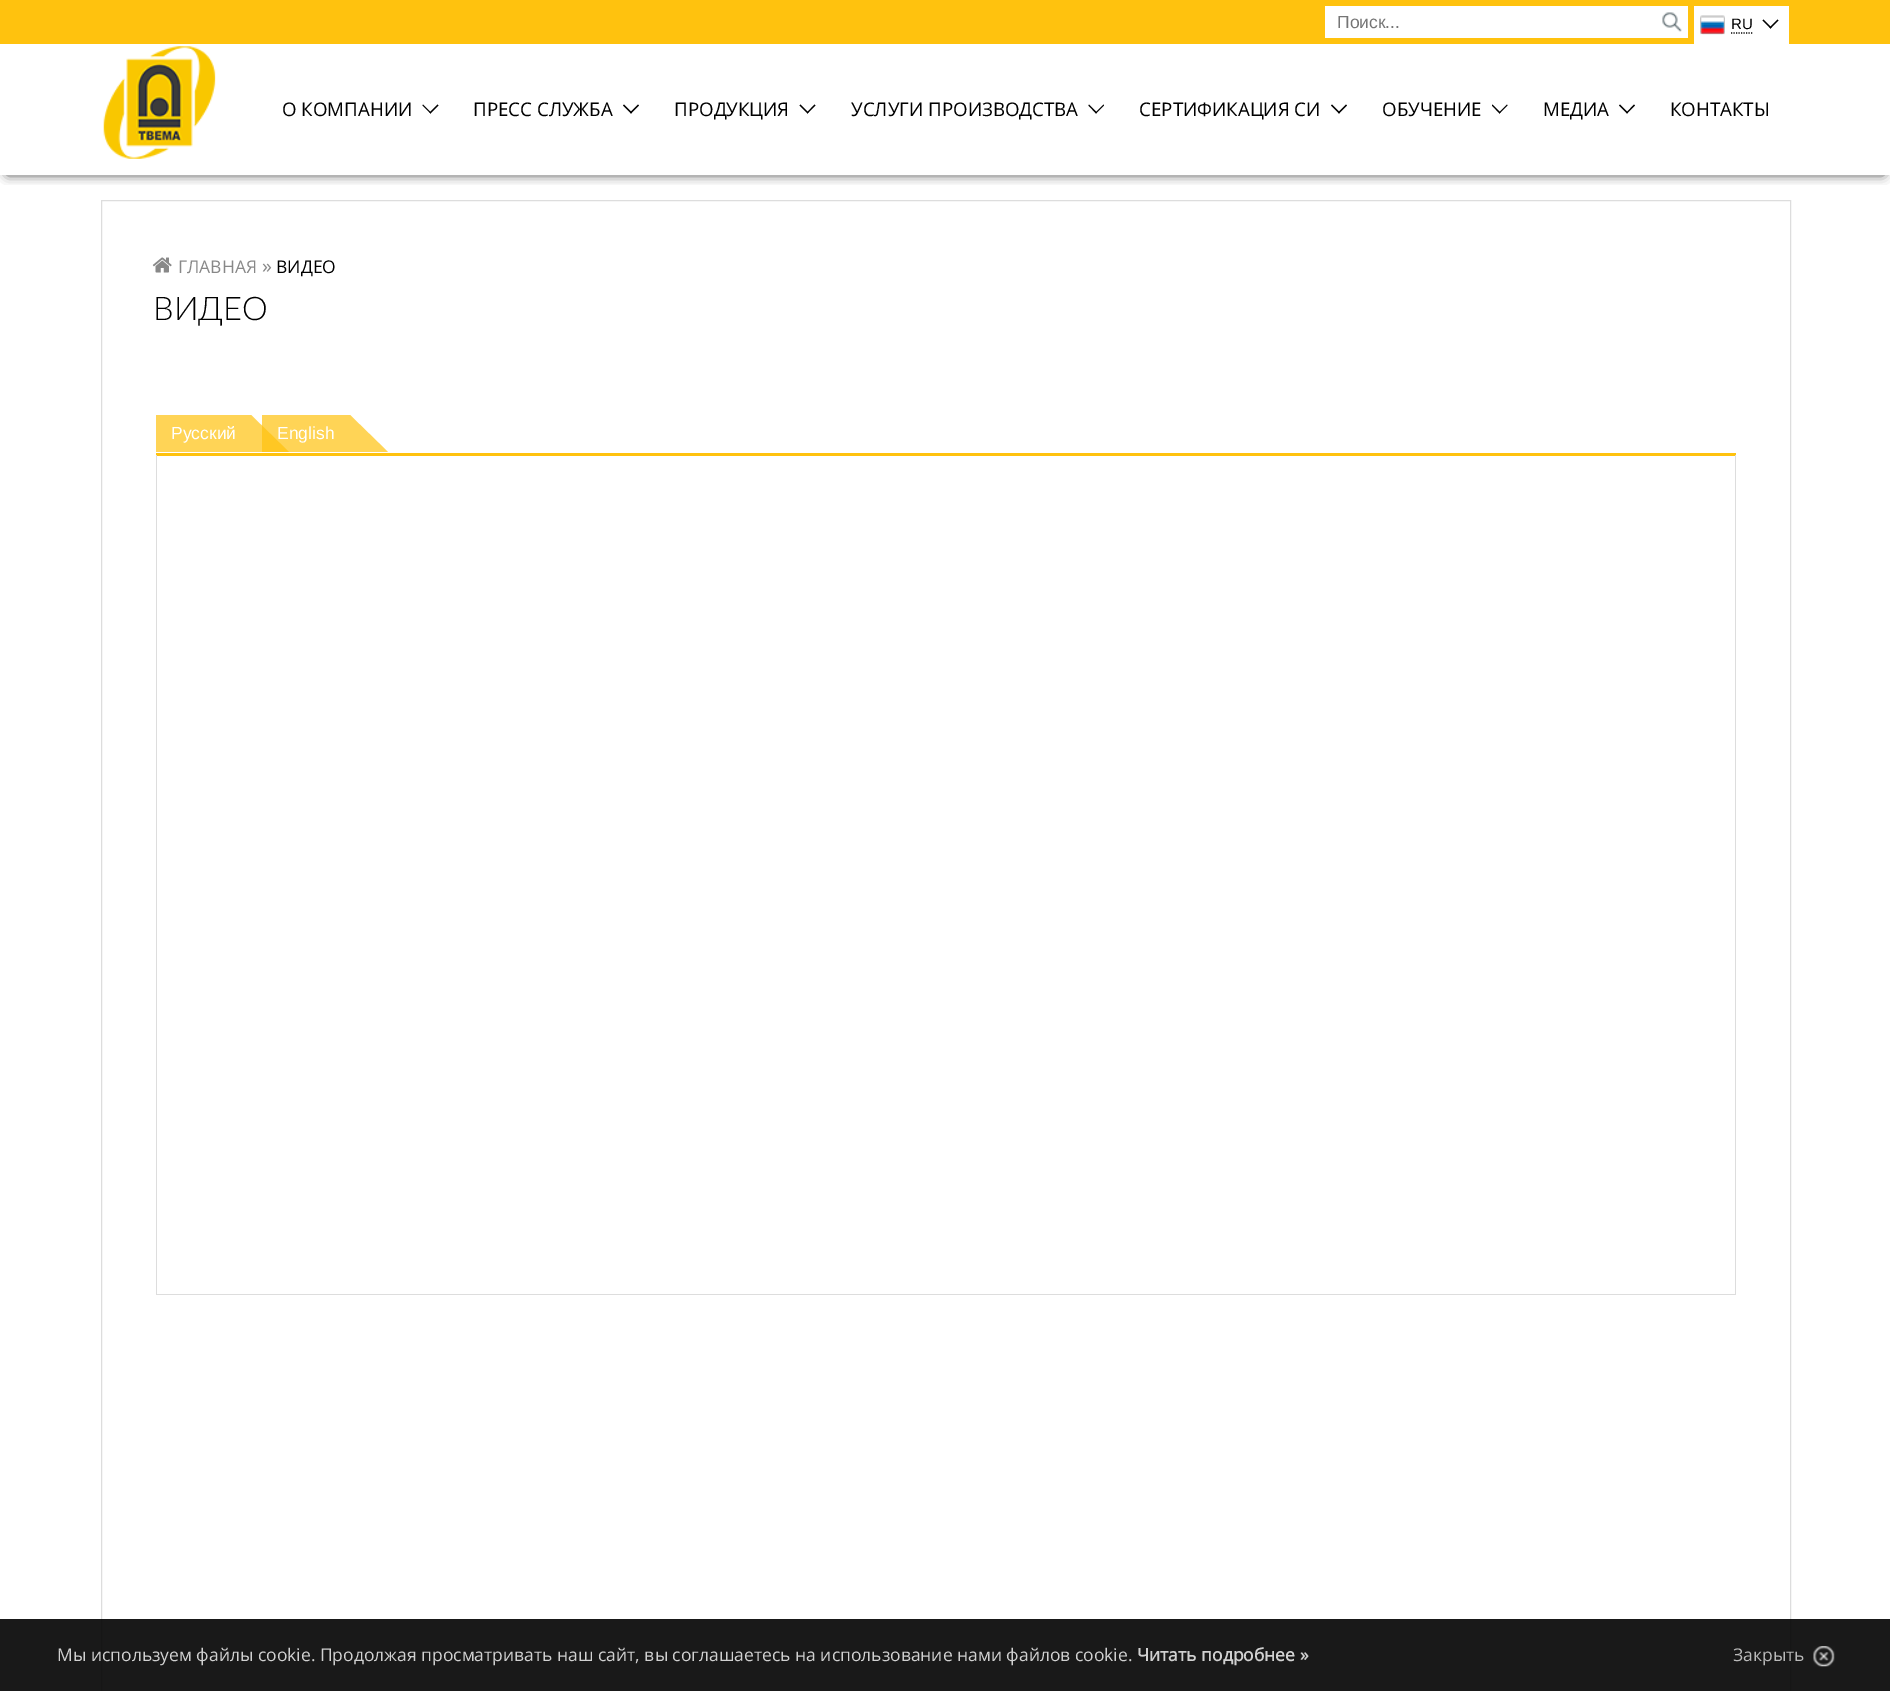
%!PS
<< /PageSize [1890 1691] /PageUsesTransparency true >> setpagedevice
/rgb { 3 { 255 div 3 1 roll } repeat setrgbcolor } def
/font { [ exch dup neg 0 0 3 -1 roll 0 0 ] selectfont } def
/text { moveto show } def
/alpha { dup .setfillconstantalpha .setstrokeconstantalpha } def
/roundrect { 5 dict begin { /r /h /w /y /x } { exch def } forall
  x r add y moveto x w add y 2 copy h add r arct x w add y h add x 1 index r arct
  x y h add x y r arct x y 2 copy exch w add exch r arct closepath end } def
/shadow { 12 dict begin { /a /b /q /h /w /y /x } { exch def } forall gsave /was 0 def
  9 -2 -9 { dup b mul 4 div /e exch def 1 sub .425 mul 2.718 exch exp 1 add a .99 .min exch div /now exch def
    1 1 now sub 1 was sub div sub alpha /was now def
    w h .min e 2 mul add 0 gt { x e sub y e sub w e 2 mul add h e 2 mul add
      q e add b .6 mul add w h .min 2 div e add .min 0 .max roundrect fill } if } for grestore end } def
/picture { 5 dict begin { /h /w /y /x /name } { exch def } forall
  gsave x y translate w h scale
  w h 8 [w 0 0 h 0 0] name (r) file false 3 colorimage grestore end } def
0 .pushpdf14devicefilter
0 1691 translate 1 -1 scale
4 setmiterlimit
255 255 255 rgb
0 0 1890 1691 rectfill
gsave
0 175 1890 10 rectclip
0 0 0 rgb
8 13 1875 160 0 6 1 shadow
grestore
255 194 14 rgb
0 0 1890 44 rectfill
255 255 255 rgb
1325 6 363 32 rectfill
(img_01.rgb) 1662 12 20 20 picture
1694 6 95 38 rectfill
(img_02.rgb) 1700 15 25 20 picture
0 0 0 rgb
1.2 setlinewidth
[1.25 1.25] 0 setdash
1731 33 moveto 21.5 0 rlineto stroke
1777.5 19.5 moveto 1 1 rlineto -8 8 rlineto -1 -1 rlineto closepath fill
1763.5 19.5 moveto 8 8 rlineto -1 1 rlineto -8 -8 rlineto closepath fill
(img_03.rgb) 103 46 113 113 picture
437.5 104.5 moveto 1 1 rlineto -8 8 rlineto -1 -1 rlineto closepath fill
423 104.5 moveto 8 8 rlineto -0.5 1 rlineto -8 -8 rlineto closepath fill
638 104.5 moveto 1 1 rlineto -8 8 rlineto -1 -1 rlineto closepath fill
624 104.5 moveto 8 8 rlineto -1 1 rlineto -8 -8 rlineto closepath fill
814.5 104.5 moveto 1 1 rlineto -8 8 rlineto -0.5 -1 rlineto closepath fill
800.5 104.5 moveto 8 8 rlineto -1 1 rlineto -8 -8 rlineto closepath fill
1103.5 104.5 moveto 0.5 1 rlineto -8 8 rlineto -0.5 -1 rlineto closepath fill
1089 104.5 moveto 8 8 rlineto -1 1 rlineto -7.5 -8 rlineto closepath fill
1346 104.5 moveto 1 1 rlineto -8 8 rlineto -1 -1 rlineto closepath fill
1332 104.5 moveto 8 8 rlineto -1 1 rlineto -8 -8 rlineto closepath fill
1507 104.5 moveto 0.5 1 rlineto -8 8 rlineto -0.5 -1 rlineto closepath fill
1492.5 104.5 moveto 8 8 rlineto -1 1 rlineto -7.5 -8 rlineto closepath fill
1634 104.5 moveto 1 1 rlineto -8 8 rlineto -0.5 -1 rlineto closepath fill
1620 104.5 moveto 8 8 rlineto -1 1 rlineto -8 -8 rlineto closepath fill
221 221 221 rgb
1 setlinewidth
[] 0 setdash
101.5 200.5 1689 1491 rectstroke
(img_04.rgb) 152 257 20 16 picture
255 194 14 rgb
156 453 1580 3 rectfill
255 212 86 rgb
289 452 moveto -133 0 rlineto 0 -37 rlineto 95 0 rlineto closepath fill
0.7 alpha
255 194 14 rgb
388 452 moveto -126 0 rlineto 0 -37 rlineto 88 0 rlineto closepath fill
1 alpha
221 221 221 rgb
1735 455 1 840 rectfill
156 1294 1580 1 rectfill
156 455 1 840 rectfill
0.9 alpha
0 0 0 rgb
0 1619 1890 72 rectfill
1 alpha
(img_05.rgb) 1813 1646 22 21 picture
/LiberationSans-Regular 17.5 font
117 117 117 rgb
(Поиск...) 1337 28 text
/LiberationSans-Regular 15 font
0 0 0 rgb
(RU) 1731 29 text
/OpenSans-Regular 18.75 font
(О КОМПАНИИ) 282 116 text
(ПРЕСС СЛУЖБА) 473 116 text
(ПРОДУКЦИЯ) 674 116 text
(УСЛУГИ ПРОИЗВОДСТВА) 851 116 text
(СЕРТИФИКАЦИЯ СИ) 1139 116 text
(ОБУЧЕНИЕ) 1382 116 text
(МЕДИА) 1543 116 text
(КОНТАКТЫ) 1670 116 text
/OpenSans-Regular 17.5 font
136 136 136 rgb
(ГЛАВНАЯ) 178 273 text
/OpenSans-Regular 20 font
(») 262 273 text
/OpenSans-Regular 17.5 font
0 0 0 rgb
(ВИДЕО) 276 273 text
/Lato-Light 32.5 font
(ВИДЕО) 153 320 text
/LiberationSans-Regular 17.5 font
255 255 255 rgb
(Русский) 171 439 text
(English) 277 439 text
/OpenSans-Regular 17.5 font
209 209 209 rgb
(Мы используем файлы cookie. Продолжая просматривать наш сайт, вы соглашаетесь на использование нами файлов cookie.) 57 1661 text
/OpenSans-Bold 17.5 font
(Читать подробнее ») 1137 1661 text
/OpenSans-Regular 17.5 font
186 186 186 rgb
(Закрыть) 1733 1661 text
.poppdf14devicefilter showpage
